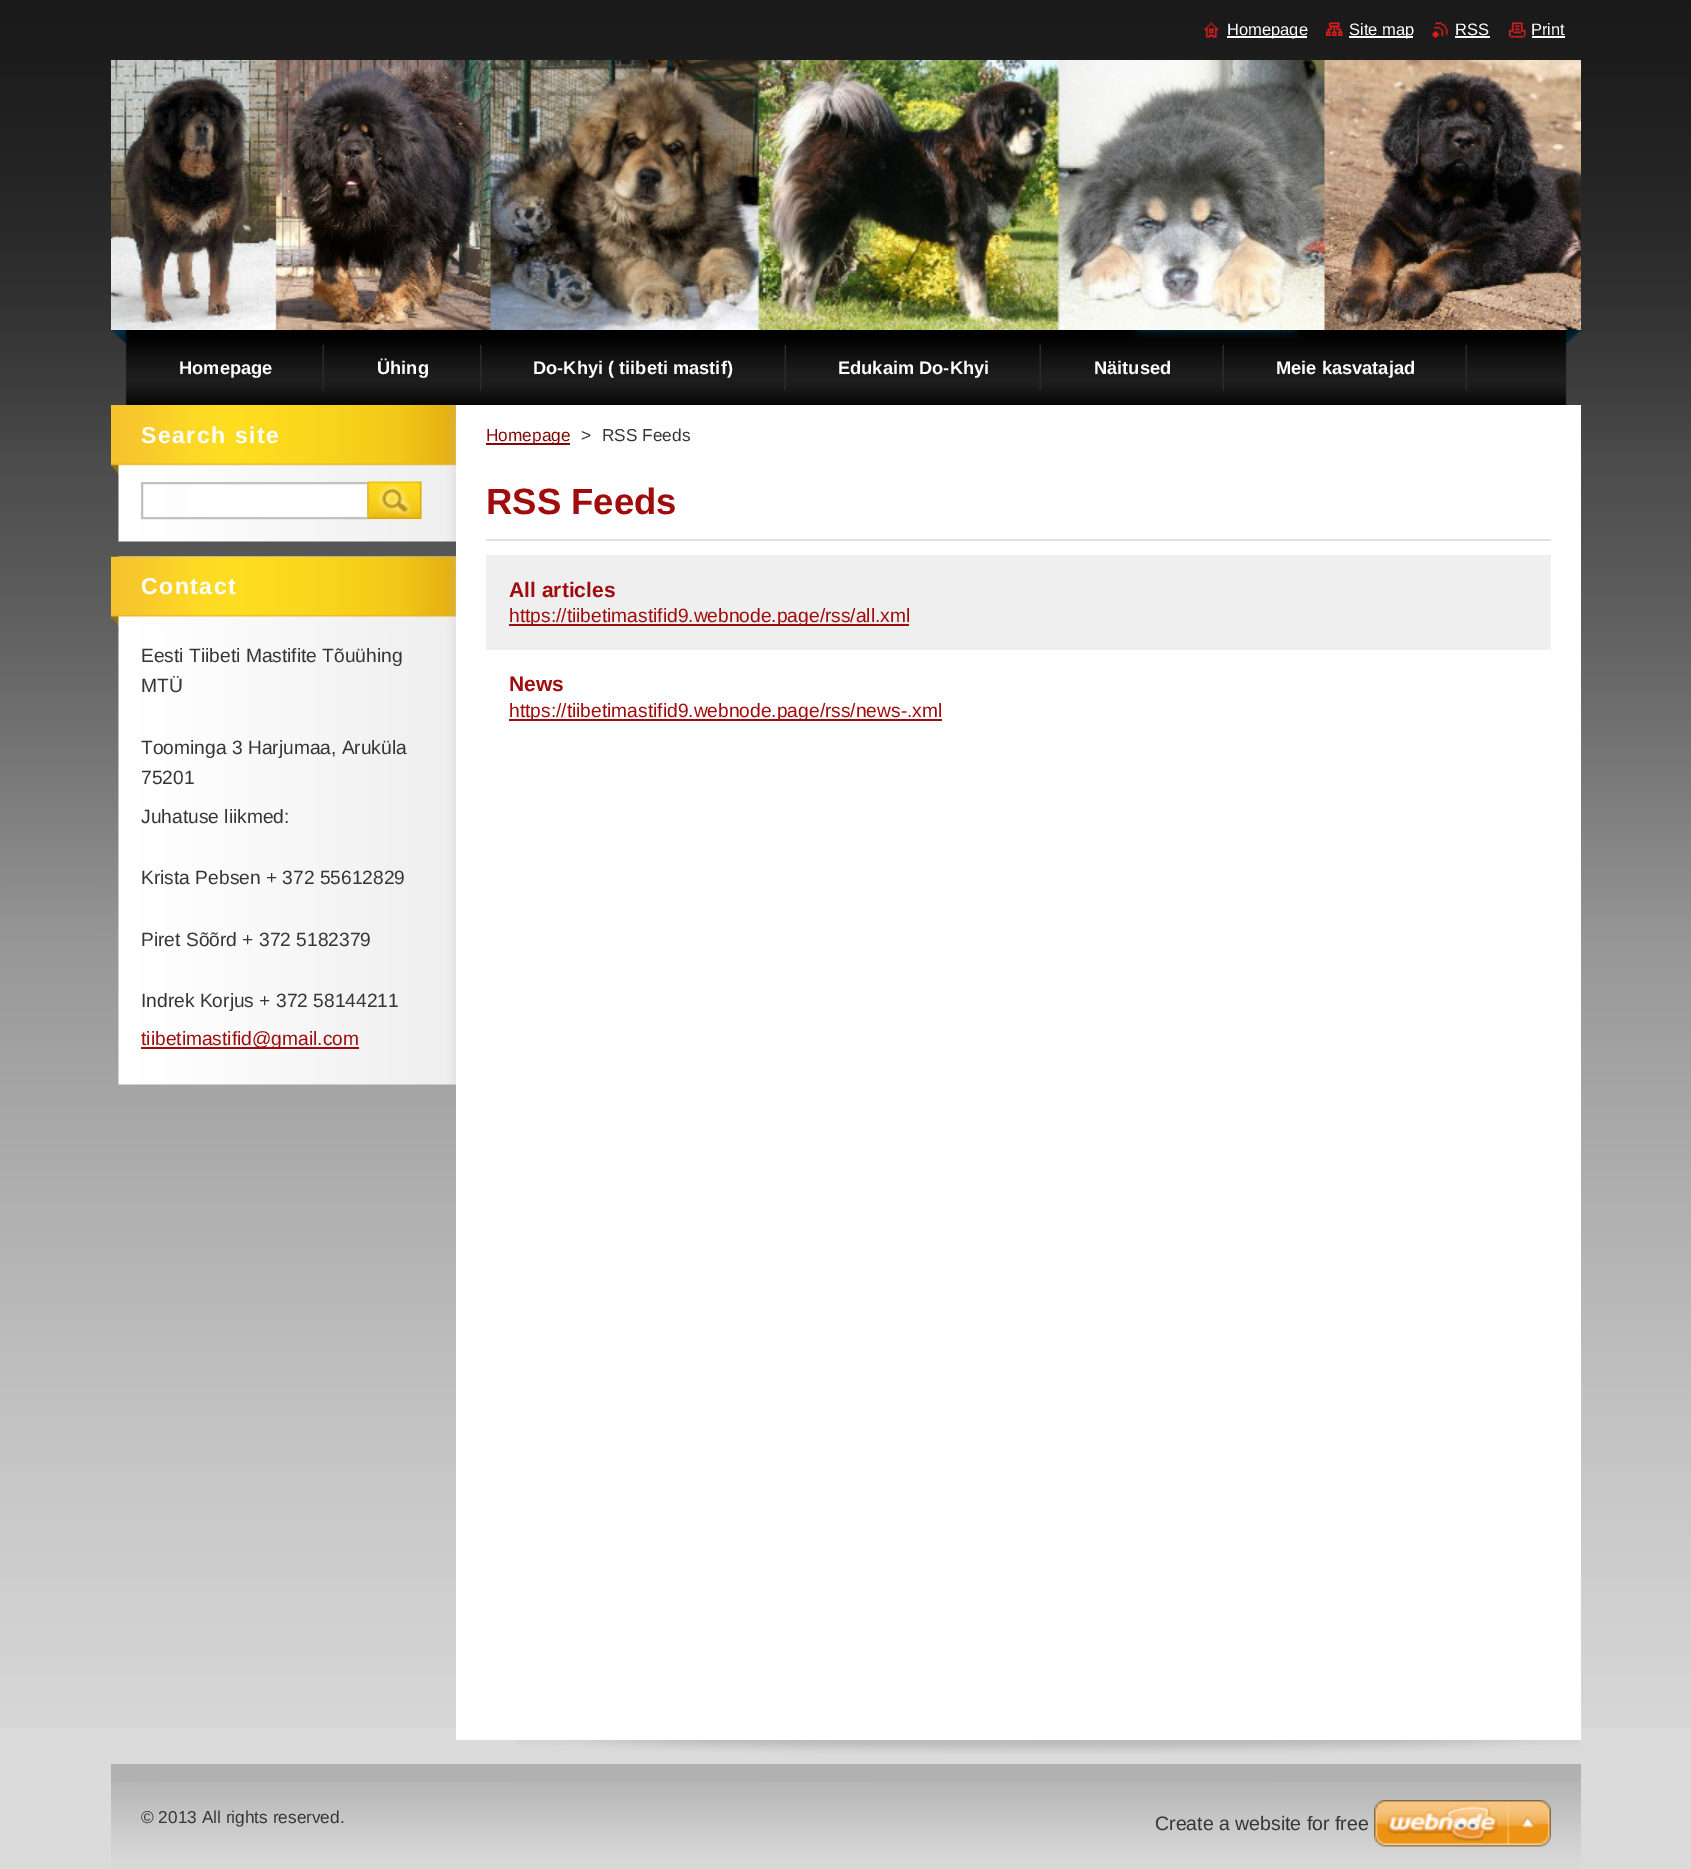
%!PS
<< /PageSize [1691 1869] >> setpagedevice
/rgb { 3 { 255 div 3 1 roll } repeat setrgbcolor } def
/font { [ exch dup neg 0 0 3 -1 roll 0 0 ] selectfont } def
/text { moveto show } def
/picture { 5 dict begin { /h /w /y /x /name } { exch def } forall
  gsave x y translate w h scale
  w h 8 [w 0 0 h 0 0] name (r) file false 3 colorimage grestore end } def
0 1869 translate 1 -1 scale
4 setmiterlimit
219 219 219 rgb
0 0 1691 1869 rectfill
(img_01.rgb) 0 0 1691 1728 picture
(img_02.rgb) 1204 22 14 16 picture
255 255 255 rgb
1227 36 80 2 rectfill
(img_03.rgb) 1326 22 17 14 picture
1349 36 64 2 rectfill
(img_04.rgb) 1432 22 16 16 picture
1455 36 35 2 rectfill
(img_05.rgb) 1509 22 17 16 picture
1532 36 33 2 rectfill
(img_06.rgb) 111 60 1470 270 picture
(img_07.rgb) 111 330 1470 75 picture
(img_08.rgb) 322 345 2 45 picture
(img_09.rgb) 480 345 2 45 picture
(img_08.rgb) 784 345 2 45 picture
(img_08.rgb) 1039 345 2 45 picture
(img_08.rgb) 1222 345 2 45 picture
(img_08.rgb) 1465 345 2 45 picture
(img_10.rgb) 118 465 338 77 picture
(img_11.rgb) 111 405 345 69 picture
188 484 179 33 rectfill
193 193 193 rgb
2 setlinewidth
142 483 226 35 rectstroke
(img_12.rgb) 367 481 55 38 picture
(img_13.rgb) 118 556 338 529 picture
(img_14.rgb) 111 556 345 70 picture
160 12 12 rgb
141 1047 218 2 rectfill
(img_15.rgb) 516 1740 1065 14 picture
255 255 255 rgb
456 405 1125 1335 rectfill
131 5 5 rgb
486 443 84 2 rectfill
225 225 225 rgb
486 539 1065 2 rectfill
239 239 239 rgb
486 555 1065 95 rectfill
160 12 12 rgb
509 624 400 2 rectfill
509 719 433 2 rectfill
177 177 177 rgb
111 1764 1470 18 rectfill
(img_16.rgb) 111 1782 1470 87 picture
(img_17.rgb) 1374 1800 177 47 picture
/LiberationSans-Regular 16.5 font
255 255 255 rgb
(Homepage) 1227 35 text
(Site map) 1349 35 text
(RSS) 1455 35 text
(Print) 1531 35 text
/LiberationSans-Bold 18.25 font
(Homepage) 179 374 text
(Ühing) 377 374 text
(Do-Khyi \( tiibeti mastif\)) 533 374 text
(Edukaim Do-Khyi) 838 374 text
(Näitused) 1094 374 text
(Meie kasvatajad) 1276 374 text
/LiberationSans-Bold 23 font
141 443 moveto 1.5 0 (Search site) ashow
141 594 moveto 1.5 0 (Contact) ashow
/LiberationSans-Regular 19.2 font
54 54 54 rgb
(Eesti Tiibeti Mastifite Tõuühing) 141 662 text
(MTÜ) 141 692 text
(Toominga 3 Harjumaa, Aruküla) 141 754 text
(75201) 141 784 text
(Juhatuse liikmed:) 141 823 text
(Krista Pebsen + 372 55612829) 141 884 text
(Piret Sõõrd + 372 5182379) 141 946 text
(Indrek Korjus + 372 58144211) 141 1007 text
160 12 12 rgb
(tiibetimastifid@gmail.com) 141 1045 text
/LiberationSans-Regular 17.25 font
131 5 5 rgb
(Homepage) 486 441 text
54 54 54 rgb
(>) 581 441 text
(RSS Feeds) 602 441 text
/LiberationSans-Bold 36.5 font
160 12 12 rgb
(RSS Feeds) 486 514 text
/LiberationSans-Bold 21 font
(All articles) 509 597 text
/LiberationSans-Regular 19.2 font
(https://tiibetimastifid9.webnode.page/rss/all.xml) 509 622 text
/LiberationSans-Bold 21 font
(News) 509 691 text
/LiberationSans-Regular 19.2 font
(https://tiibetimastifid9.webnode.page/rss/news-.xml) 509 717 text
/LiberationSans-Regular 17.25 font
54 54 54 rgb
(© 2013 All rights reserved.) 141 1823 text
/LiberationSans-Regular 19.5 font
(Create a website for free) 1155 1830 text
showpage
